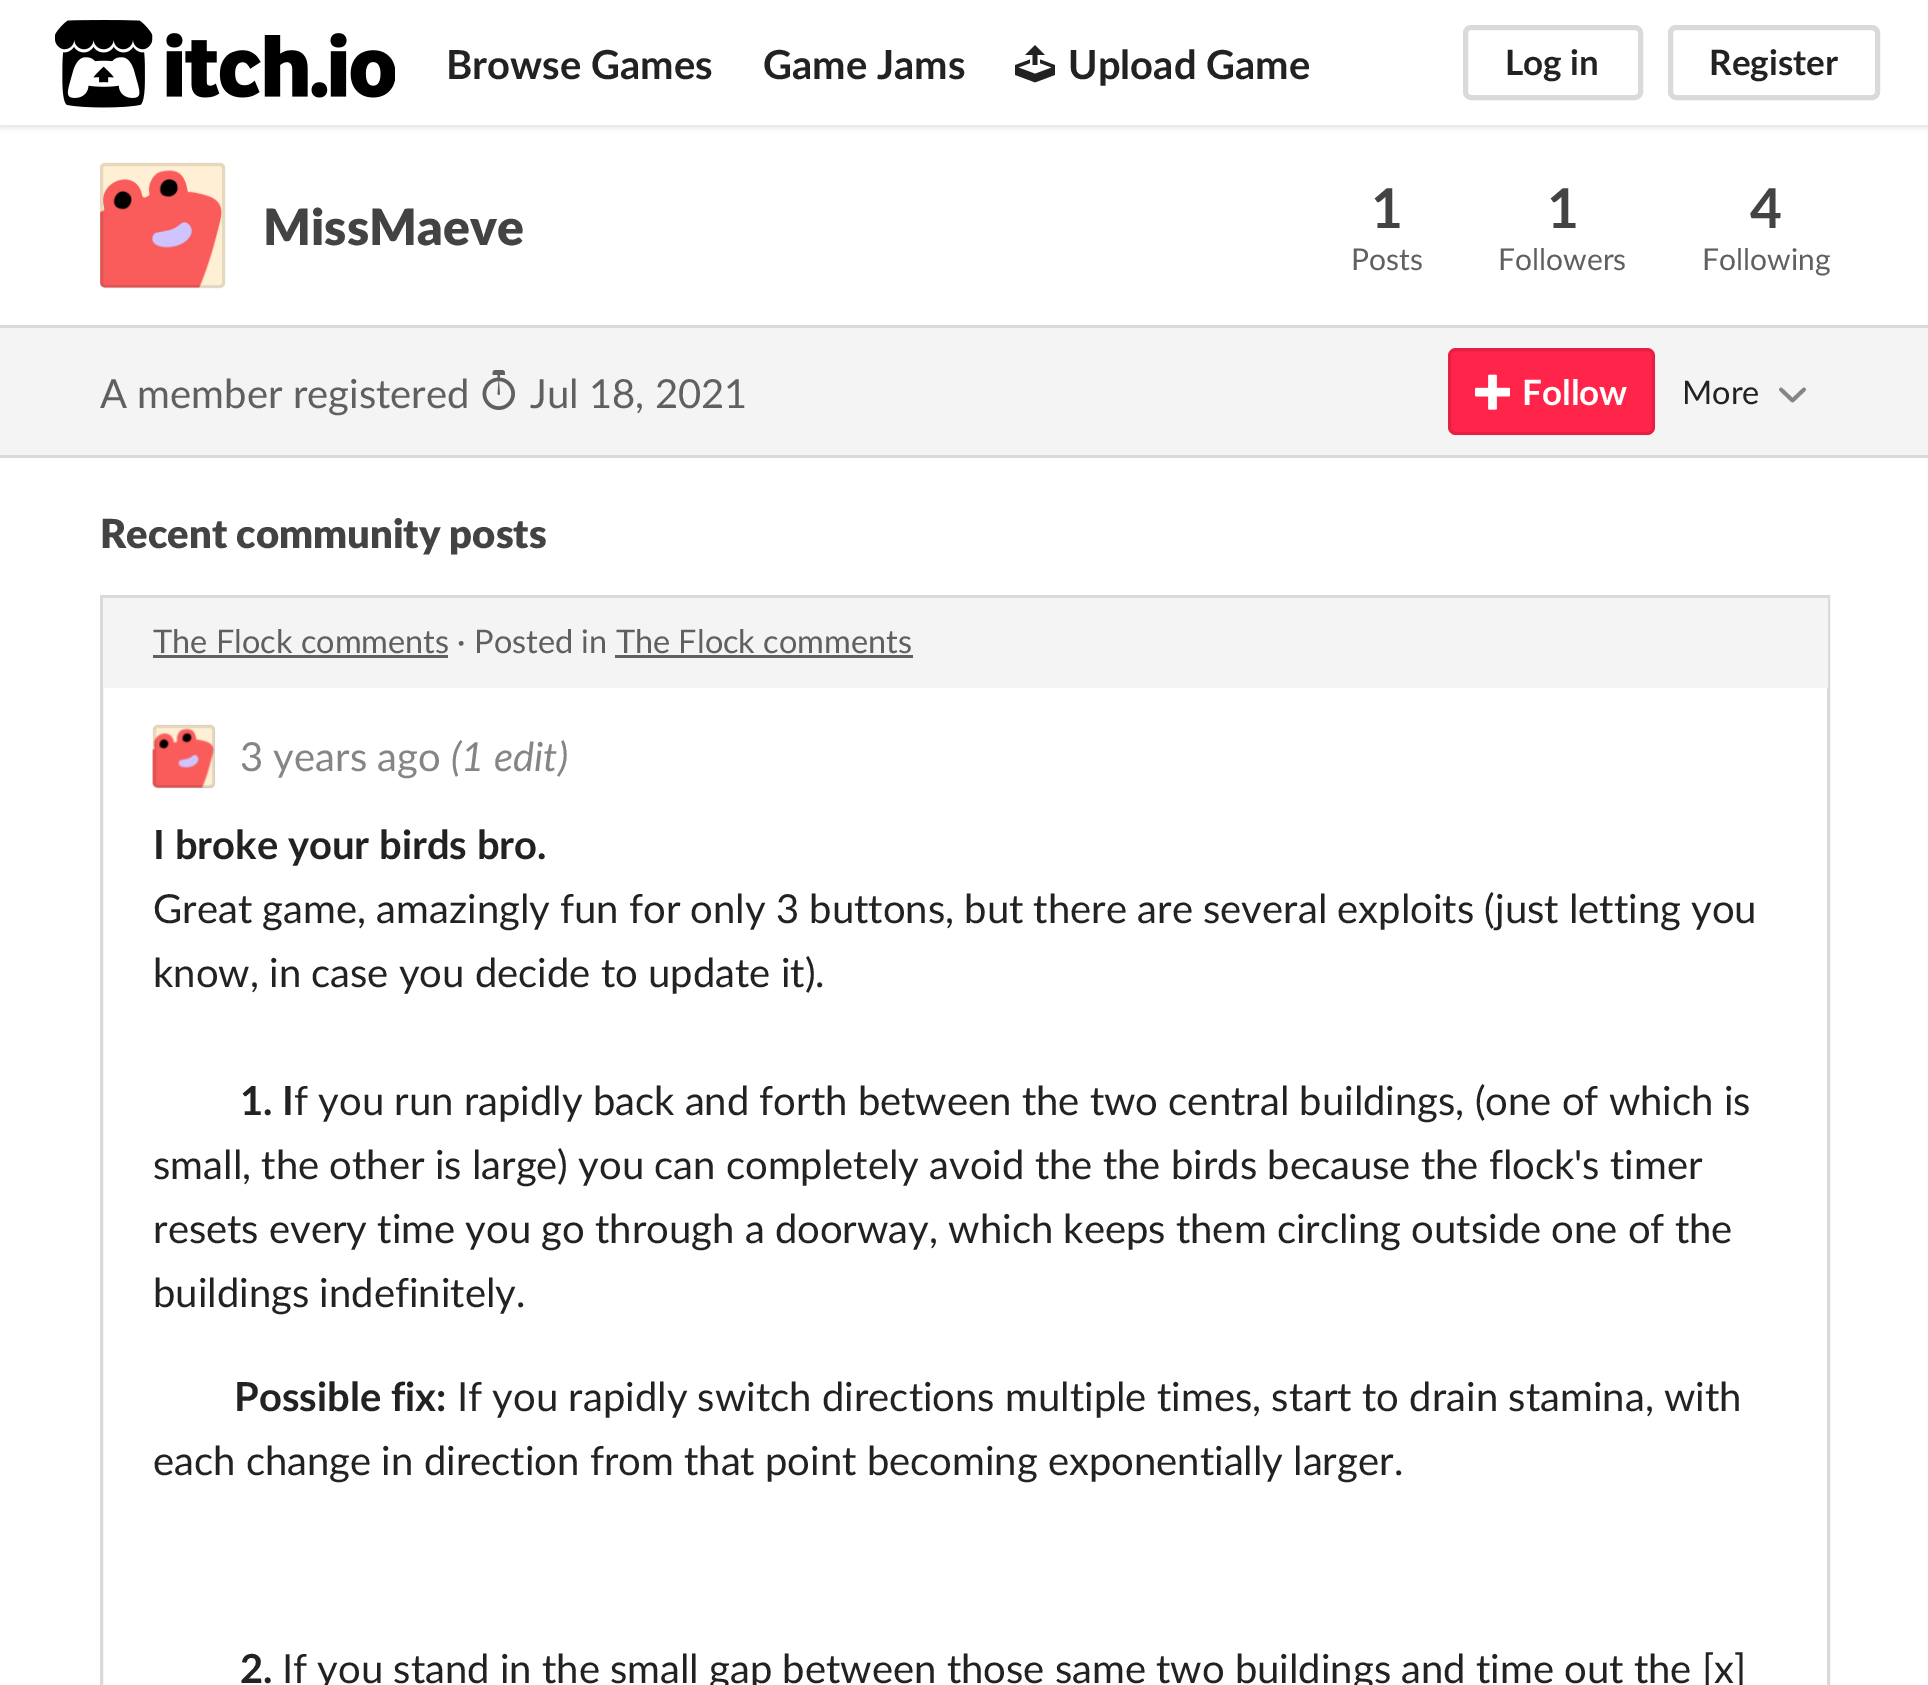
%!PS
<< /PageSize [1928 1685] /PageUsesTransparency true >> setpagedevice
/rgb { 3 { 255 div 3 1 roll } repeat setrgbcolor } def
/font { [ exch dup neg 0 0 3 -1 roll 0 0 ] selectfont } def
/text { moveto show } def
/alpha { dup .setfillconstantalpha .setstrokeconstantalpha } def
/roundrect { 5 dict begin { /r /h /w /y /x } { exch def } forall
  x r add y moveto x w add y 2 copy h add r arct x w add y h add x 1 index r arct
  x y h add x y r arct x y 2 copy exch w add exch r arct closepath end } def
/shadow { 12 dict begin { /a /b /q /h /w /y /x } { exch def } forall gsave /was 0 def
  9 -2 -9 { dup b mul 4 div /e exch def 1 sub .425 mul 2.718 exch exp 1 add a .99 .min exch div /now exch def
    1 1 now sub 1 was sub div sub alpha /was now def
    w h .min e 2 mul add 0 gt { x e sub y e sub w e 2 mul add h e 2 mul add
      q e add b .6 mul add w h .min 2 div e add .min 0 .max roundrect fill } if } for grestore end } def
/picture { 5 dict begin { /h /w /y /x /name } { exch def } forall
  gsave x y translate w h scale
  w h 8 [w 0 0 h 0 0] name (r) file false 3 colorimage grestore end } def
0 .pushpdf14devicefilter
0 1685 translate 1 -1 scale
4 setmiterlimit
255 255 255 rgb
0 0 1928 1685 rectfill
0 0 0 rgb
0 3 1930 125 0 2.5 0.1 shadow
255 255 255 rgb
0 0 1928 125 rectfill
(img_01.rgb) 55 20 340 88 picture
(img_02.rgb) 1015 45 40 38 picture
218 218 218 rgb
5 setlinewidth
1465.5 27.5 175 70 5.5 roundrect stroke
1670.5 27.5 207 70 5.5 roundrect stroke
0 325 1928 3 rectfill
244 244 244 rgb
100 163 125 125 5 roundrect fill
(img_03.rgb) 100 162 125 126 picture
0.1 alpha
0 0 0 rgb
3 setlinewidth
101.5 164.5 122 122 3.5 roundrect stroke
1 alpha
244 244 244 rgb
0 328 1928 127 rectfill
218 218 218 rgb
0 455 1928 3 rectfill
(img_04.rgb) 482 370 33 40 picture
255 36 73 rgb
1448 348 207 87 8 roundrect fill
0.1 alpha
0 0 0 rgb
1449.5 349.5 204 84 6.5 roundrect stroke
1 alpha
(img_05.rgb) 1475 374 35 36 picture
133 133 133 rgb
3.8 setlinewidth
1 setlinecap
1 setlinejoin
1781 389.5 moveto 11.5 11 rlineto 11.5 -11 rlineto stroke
218 218 218 rgb
3 setlinewidth
0 setlinecap
0 setlinejoin
101.5 596.5 1727 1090 rectstroke
244 244 244 rgb
103 598 1725 90 rectfill
96 96 96 rgb
153 655 295 3 rectfill
615 655 298 3 rectfill
204 204 204 rgb
153 725 62 63 5 roundrect fill
(img_06.rgb) 152 724 64 64 picture
0.1 alpha
0 0 0 rgb
154.5 726.5 59 60 3.5 roundrect stroke
0.95 alpha
255 255 255 rgb
25 setlinewidth
227.5 720.5 1563 72 rectstroke
/Lato-Bold 40 font
1 alpha
34 34 34 rgb
(Browse Games) 446 79 text
(Game Jams) 763 79 text
(Upload Game) 1068 79 text
/Lato-Bold 35 font
(Log in) 1505 75 text
(Register) 1709 75 text
/Lato-Black 50 font
67 67 67 rgb
(MissMaeve) 263 245 text
/Lato-Bold 55 font
(1) 1371 228 text
/Lato-Regular 30 font
96 96 96 rgb
(Posts) 1351 270 text
/Lato-Bold 55 font
67 67 67 rgb
(1) 1547 228 text
/Lato-Regular 30 font
96 96 96 rgb
(Followers) 1498 270 text
/Lato-Bold 55 font
67 67 67 rgb
(4) 1750 228 text
/Lato-Regular 30 font
96 96 96 rgb
(Following) 1702 270 text
/Lato-Regular 40 font
(A member registered) 100 408 text
(Jul 18, 2021) 530 408 text
/Lato-Bold 35 font
255 255 255 rgb
(Follow) 1522 405 text
/Lato-Regular 32.5 font
34 34 34 rgb
(More) 1682 404 text
/Lato-Black 40 font
67 67 67 rgb
(Recent community posts) 100 548 text
/Lato-Regular 32.5 font
96 96 96 rgb
(The Flock comments · Posted in The Flock comments) 153 653 text
/Lato-Regular 40 font
133 133 133 rgb
(3 years ago) 240 771 text
/Lato-Italic 40 font
(\(1 edit\)) 451 771 text
/Lato-Bold 40 font
34 34 34 rgb
(I broke your birds bro.) 153 859 text
/Lato-Regular 40 font
(Great game, amazingly fun for only 3 buttons, but there are several exploits \(just letting you) 153 923 text
(know, in case you decide to update it\).) 153 987 text
/Lato-Bold 40 font
(1. I) 240 1115 text
/Lato-Regular 40 font
(f you run rapidly back and forth between the two central buildings, \(one of which is) 294 1115 text
(small, the other is large\) you can completely avoid the the birds because the flock's timer) 153 1179 text
(resets every time you go through a doorway, which keeps them circling outside one of the) 153 1243 text
(buildings indefinitely.) 153 1307 text
/Lato-Bold 40 font
(Possible fix:) 234 1411 text
/Lato-Regular 40 font
(If you rapidly switch directions multiple times, start to drain stamina, with) 457 1411 text
(each change in direction from that point becoming exponentially larger.) 153 1475 text
/Lato-Bold 40 font
(2.) 240 1683 text
/Lato-Regular 40 font
(If you stand in the small gap between those same two buildings and time out the [x]) 282 1683 text
.poppdf14devicefilter showpage
